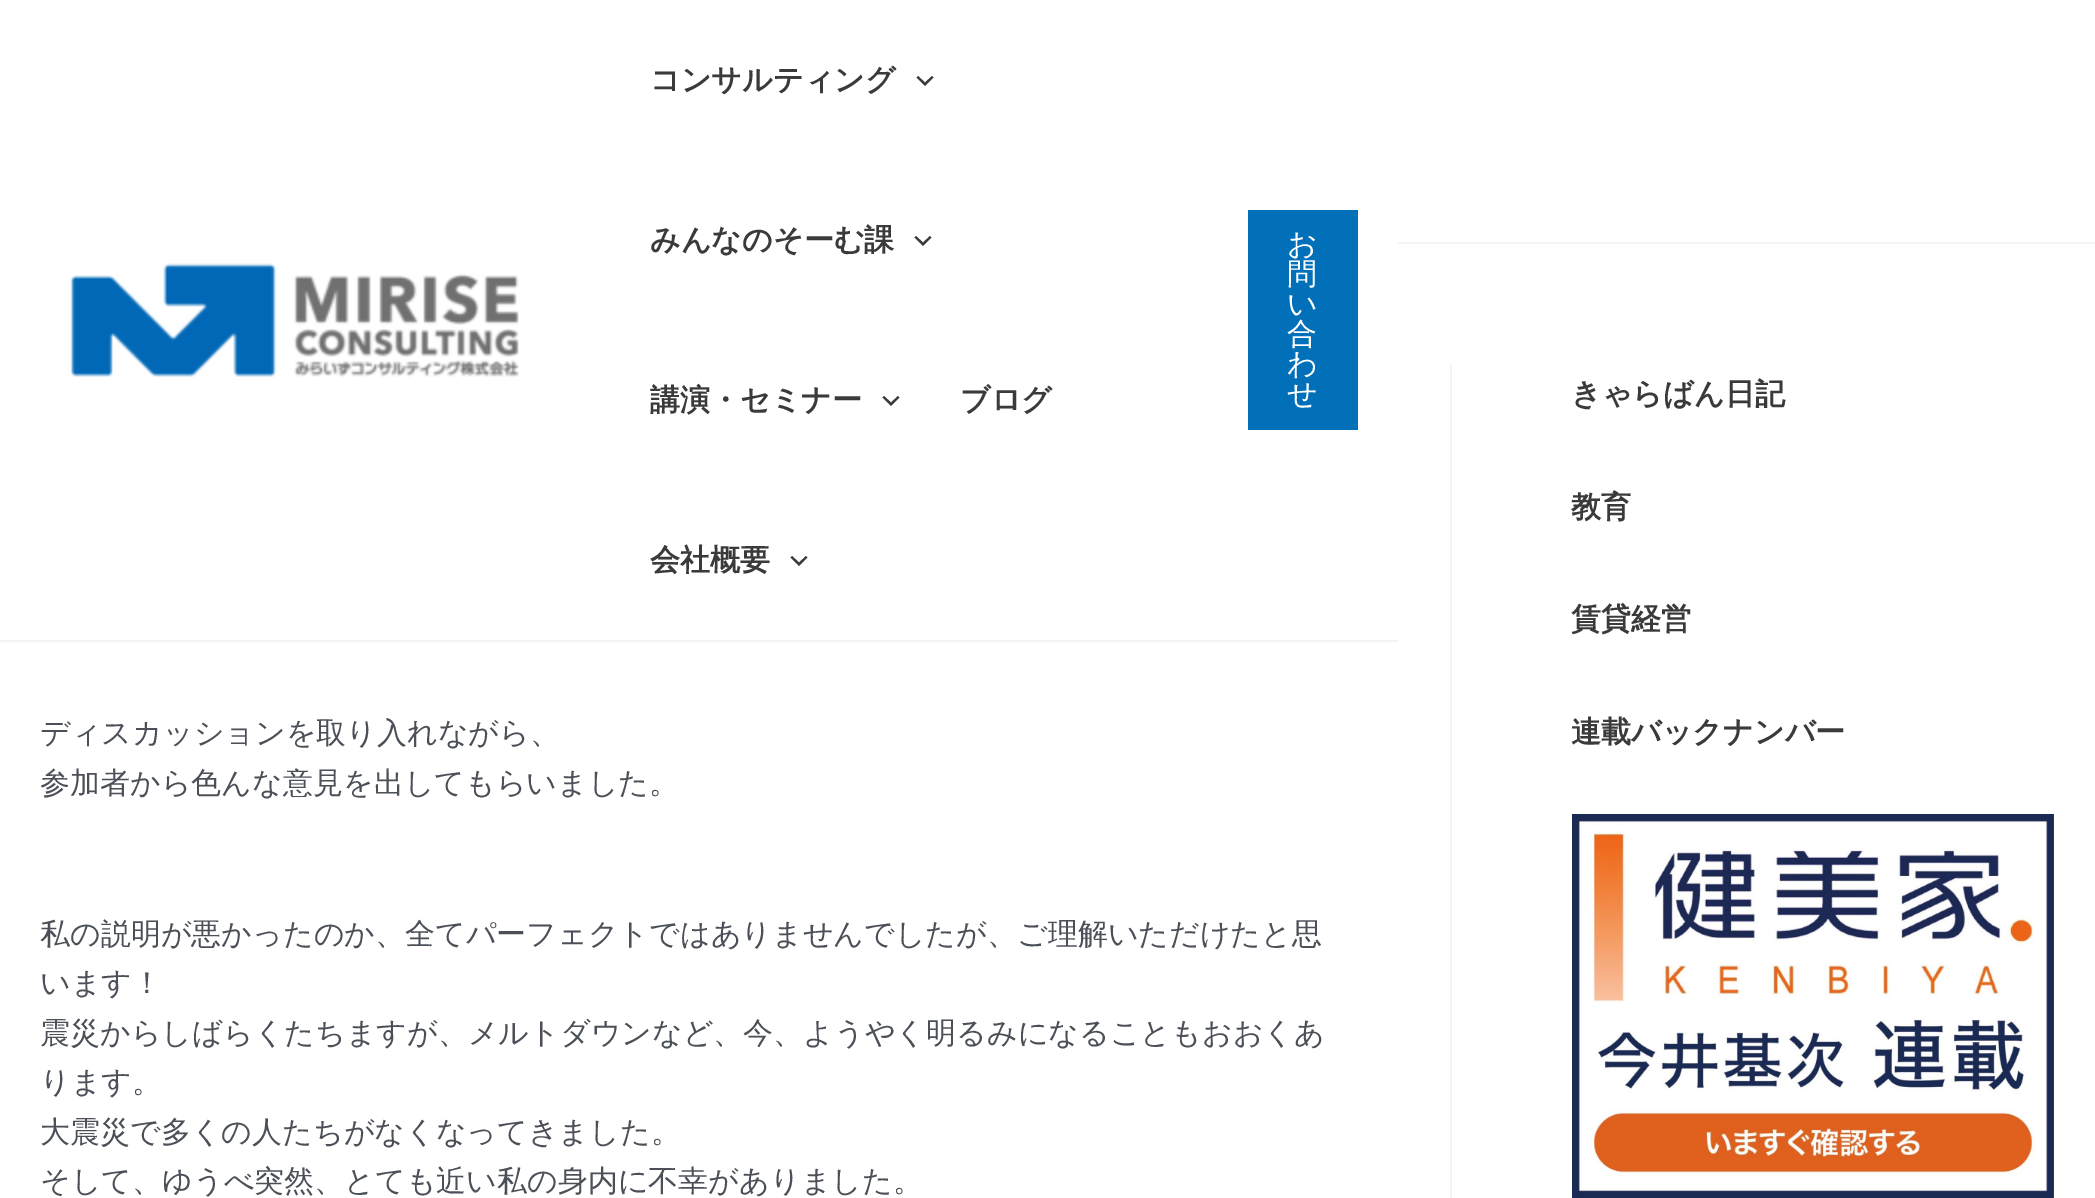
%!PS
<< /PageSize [2095 1198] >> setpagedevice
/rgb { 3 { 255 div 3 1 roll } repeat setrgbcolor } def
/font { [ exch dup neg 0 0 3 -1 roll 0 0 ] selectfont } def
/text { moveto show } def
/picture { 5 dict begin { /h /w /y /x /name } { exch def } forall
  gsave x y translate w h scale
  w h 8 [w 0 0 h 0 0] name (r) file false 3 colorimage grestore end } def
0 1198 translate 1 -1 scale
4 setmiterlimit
255 255 255 rgb
0 0 2095 1198 rectfill
242 245 247 rgb
0 640 1398 2 rectfill
(img_01.rgb) 70 263 449 114 picture
58 58 58 rgb
916.5 77.5 moveto 8.5 8.5 rlineto 8.5 -8.5 rlineto -1.5 -1.5 rlineto -7 6.5 rlineto -7 -6.5 rlineto closepath fill
914.5 237.5 moveto 8.5 8.5 rlineto 8.5 -8.5 rlineto -1.5 -1.5 rlineto -7 6.5 rlineto -7 -6.5 rlineto closepath fill
882.5 397.5 moveto 8.5 8.5 rlineto 8.5 -8.5 rlineto -1.5 -1.5 rlineto -7 6.5 rlineto -7 -6.5 rlineto closepath fill
790.5 557.5 moveto 8.5 8.5 rlineto 8.5 -8.5 rlineto -1.5 -1.5 rlineto -7 6.5 rlineto -7 -6.5 rlineto closepath fill
1 112 185 rgb
1248 210 110 220 rectfill
242 245 247 rgb
1398 242 697 2 rectfill
(img_02.rgb) 1572 814 482 384 picture
1450 364 2 834 rectfill
/WenQuanYiZenHei-Bold 30 font
58 58 58 rgb
(コンサルティング) 650 90 text
(みんなのそーむ課) 650 250 text
(講演・セミナー) 650 410 text
(ブログ) 960 410 text
(会社概要) 650 570 text
/WenQuanYiZenHei-Medium 30 font
255 255 255 rgb
(お) 1287 254 text
(問) 1287 284 text
(い) 1287 314 text
(合) 1287 344 text
(わ) 1287 374 text
(せ) 1287 404 text
/WenQuanYiZenHei-Bold 30 font
58 58 58 rgb
(きゃらばん日記) 1571 404 text
(教育) 1571 517 text
(賃貸経営) 1571 629 text
(連載バックナンバー) 1571 742 text
/WenQuanYiZenHei-Medium 30 font
75 79 88 rgb
(ディスカッションを取り入れながら、) 40 743 text
(参加者から色んな意見を出してもらいました。) 40 793 text
(私の説明が悪かったのか、全てパーフェクトではありませんでしたが、ご理解いただけたと思) 40 944 text
(います！) 40 993 text
(震災からしばらくたちますが、メルトダウンなど、今、ようやく明るみになることもおおくあ) 40 1043 text
(ります。) 40 1092 text
(大震災で多くの人たちがなくなってきました。) 40 1142 text
(そして、ゆうべ突然、とても近い私の身内に不幸がありました。) 40 1191 text
showpage
